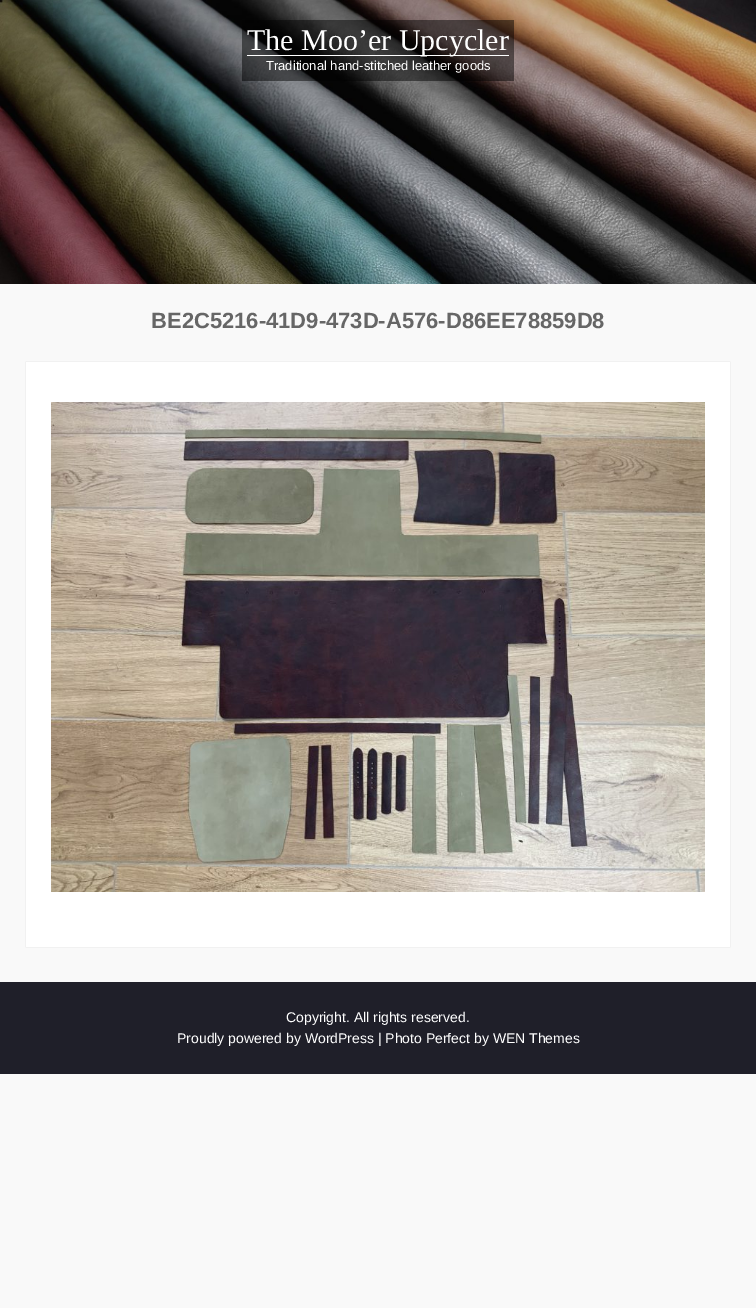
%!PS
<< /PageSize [756 1308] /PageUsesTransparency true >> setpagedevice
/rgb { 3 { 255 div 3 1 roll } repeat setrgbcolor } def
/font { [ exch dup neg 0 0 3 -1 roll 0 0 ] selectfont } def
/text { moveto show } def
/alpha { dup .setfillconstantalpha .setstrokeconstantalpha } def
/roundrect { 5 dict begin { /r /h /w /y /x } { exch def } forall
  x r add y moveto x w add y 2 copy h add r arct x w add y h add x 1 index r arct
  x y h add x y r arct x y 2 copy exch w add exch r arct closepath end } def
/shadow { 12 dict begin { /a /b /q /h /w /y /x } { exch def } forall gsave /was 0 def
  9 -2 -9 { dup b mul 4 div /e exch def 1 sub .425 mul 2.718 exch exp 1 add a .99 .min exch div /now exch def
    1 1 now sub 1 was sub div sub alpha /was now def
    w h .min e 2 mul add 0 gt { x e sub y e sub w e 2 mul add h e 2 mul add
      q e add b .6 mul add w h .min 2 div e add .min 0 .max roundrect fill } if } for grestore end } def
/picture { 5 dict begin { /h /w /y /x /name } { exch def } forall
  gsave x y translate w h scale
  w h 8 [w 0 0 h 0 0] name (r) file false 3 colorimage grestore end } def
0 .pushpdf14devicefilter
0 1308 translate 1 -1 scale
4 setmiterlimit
249 249 249 rgb
0 0 756 1308 rectfill
(img_01.rgb) 0 0 756 284 picture
0.48 alpha
0 0 0 rgb
242 20 272 61 rectfill
1 alpha
255 255 255 rgb
247 55 262 1 rectfill
221 221 221 rgb
26 362 704 585 0 0.5 1 shadow
255 255 255 rgb
26 362 704 585 rectfill
(img_02.rgb) 51 402 654 490 picture
31 31 41 rgb
0 982 756 92 rectfill
/LiberationSerif-Regular 30 font
255 255 255 rgb
(The Moo’er Upcycler) 247 50 text
/LiberationSans-Regular 13 font
(Traditional hand-stitched leather goods) 266 70 text
/LiberationSans-Bold 22 font
102 102 102 rgb
(BE2C5216-41D9-473D-A576-D86EE78859D8) 151 328 text
/LiberationSans-Regular 14 font
255 255 255 rgb
(Copyright. All rights reserved.) 286 1022 text
(Proudly powered by WordPress | Photo Perfect by WEN Themes) 177 1043 text
.poppdf14devicefilter showpage
